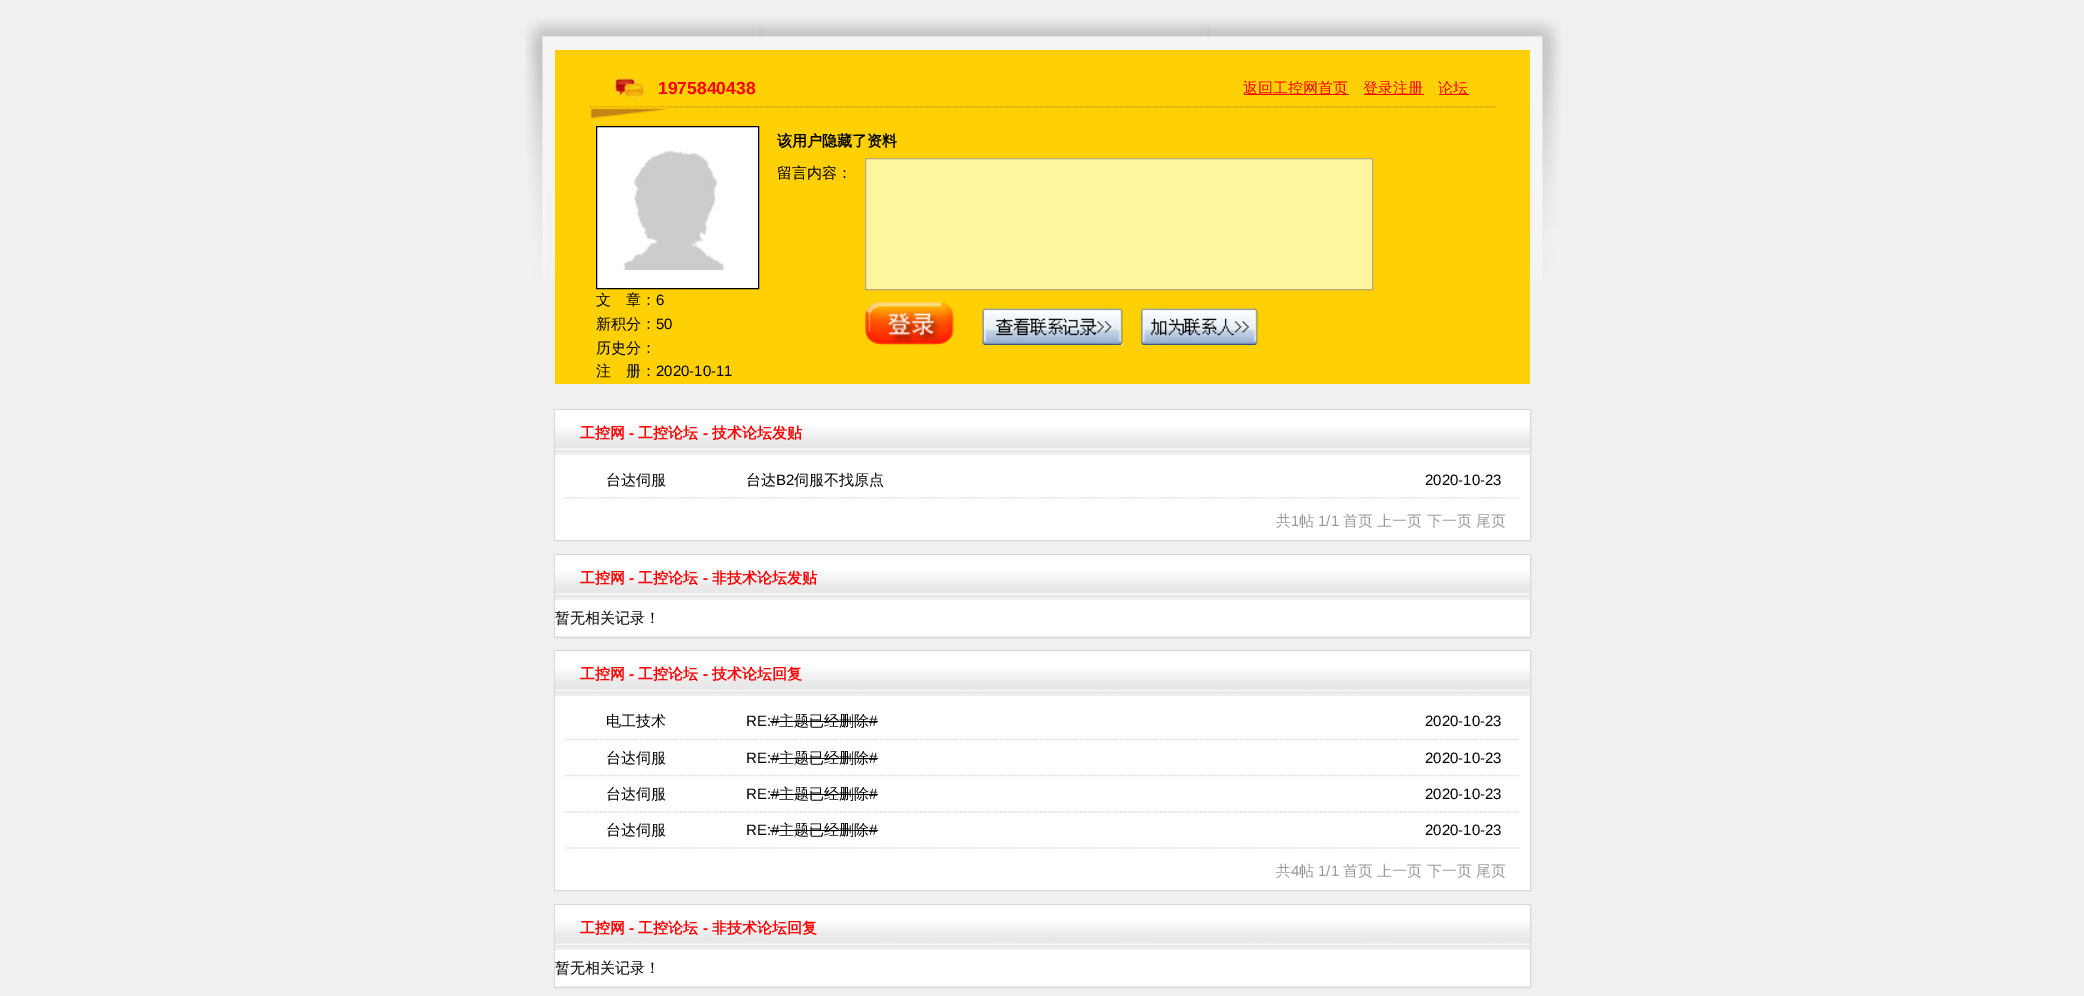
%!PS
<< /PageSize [2084 996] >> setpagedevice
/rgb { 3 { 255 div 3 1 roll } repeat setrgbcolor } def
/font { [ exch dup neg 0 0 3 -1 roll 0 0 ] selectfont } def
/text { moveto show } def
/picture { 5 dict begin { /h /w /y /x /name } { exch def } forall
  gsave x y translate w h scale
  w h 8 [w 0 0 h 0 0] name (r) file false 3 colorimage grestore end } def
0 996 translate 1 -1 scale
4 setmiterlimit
240 240 240 rgb
0 0 2084 996 rectfill
(img_01.rgb) 525 18 1036 260 picture
255 208 4 rgb
555 50 975 334 rectfill
206 146 16 rgb
1.2 setlinewidth
[1.25 1.25] 0 setdash
590 107 moveto 906 0 rlineto stroke
(img_02.rgb) 615 78 29 22 picture
254 0 2 rgb
1244 94 105 1 rectfill
1364 94 60 1 rectfill
1439 94 30 1 rectfill
(img_03.rgb) 591 107 78 12 picture
255 245 160 rgb
865.5 158.5 moveto 507 0 rlineto 0 131 rlineto -507 0 rlineto closepath gsave fill grestore
186 167 124 rgb
1 setlinewidth
[] 0 setdash
stroke
(img_04.rgb) 865 302 89 43 picture
(img_05.rgb) 982 308 141 37 picture
(img_06.rgb) 1141 308 117 37 picture
255 255 255 rgb
596.5 126.5 moveto 162 0 rlineto 0 162 rlineto -162 0 rlineto closepath gsave fill grestore
0 0 0 rgb
stroke
(img_07.rgb) 623 149 101 121 picture
217 217 217 rgb
554.5 409.5 976 131 rectstroke
(img_08.rgb) 555 410 975 43 picture
255 255 255 rgb
555 455 975 85 rectfill
217 217 217 rgb
1.2 setlinewidth
[1.25 1.25] 0 setdash
565 498 moveto 142.5 0 rlineto stroke
707.5 498 moveto 717.5 0 rlineto stroke
1425 498 moveto 95 0 rlineto stroke
1 setlinewidth
[] 0 setdash
554.5 554.5 976 83 rectstroke
(img_09.rgb) 555 555 975 43 picture
255 255 255 rgb
555 600 975 36 rectfill
217 217 217 rgb
554.5 650.5 976 240 rectstroke
(img_10.rgb) 555 651 975 43 picture
255 255 255 rgb
555 696 975 194 rectfill
217 217 217 rgb
1.2 setlinewidth
[1.25 1.25] 0 setdash
565 739.5 moveto 142.5 0 rlineto stroke
707.5 739.5 moveto 717.5 0 rlineto stroke
0 0 0 rgb
770 721 108 1 rectfill
217 217 217 rgb
1425 739.5 moveto 95 0 rlineto stroke
565 775.5 moveto 142.5 0 rlineto stroke
707.5 775.5 moveto 717.5 0 rlineto stroke
0 0 0 rgb
770 758 108 1 rectfill
217 217 217 rgb
1425 775.5 moveto 95 0 rlineto stroke
565 812 moveto 142.5 0 rlineto stroke
707.5 812 moveto 717.5 0 rlineto stroke
0 0 0 rgb
770 794 108 1 rectfill
217 217 217 rgb
1425 812 moveto 95 0 rlineto stroke
565 848 moveto 142.5 0 rlineto stroke
707.5 848 moveto 717.5 0 rlineto stroke
0 0 0 rgb
770 830 108 1 rectfill
217 217 217 rgb
1425 848 moveto 95 0 rlineto stroke
1 setlinewidth
[] 0 setdash
554.5 904.5 976 83 rectstroke
(img_11.rgb) 555 905 975 43 picture
255 255 255 rgb
555 950 975 36 rectfill
/LiberationSans-Bold 17.5 font
254 0 2 rgb
(1975840438) 658 94 text
/WenQuanYiZenHei-Medium 15 font
(返回工控网首页) 1243 93 text
(登录注册) 1363 93 text
(论坛) 1438 93 text
/WenQuanYiZenHei-Bold 15 font
0 0 0 rgb
(该用户隐藏了资料) 777 146 text
/WenQuanYiZenHei-Medium 15 font
(留言内容：) 777 178 text
(文　章：) 596 305 text
/LiberationSans-Regular 15 font
(6) 656 305 text
/WenQuanYiZenHei-Medium 15 font
(新积分：) 596 329 text
/LiberationSans-Regular 15 font
(50) 656 329 text
/WenQuanYiZenHei-Medium 15 font
(历史分：) 596 353 text
(注　册：) 596 376 text
/LiberationSans-Regular 15 font
(2020-10-11) 656 376 text
/WenQuanYiZenHei-Bold 15 font
254 0 2 rgb
(工控网) 580 438 text
/LiberationSans-Bold 15 font
(-) 629 438 text
/WenQuanYiZenHei-Bold 15 font
(工控论坛) 638 438 text
/LiberationSans-Bold 15 font
(-) 703 438 text
/WenQuanYiZenHei-Bold 15 font
(技术论坛发贴) 712 438 text
/WenQuanYiZenHei-Medium 15 font
0 0 0 rgb
(台达伺服) 606 485 text
(台达) 746 485 text
/LiberationSans-Regular 15 font
(B2) 776 485 text
/WenQuanYiZenHei-Medium 15 font
(伺服不找原点) 794 485 text
/LiberationSans-Regular 15 font
(2020-10-23) 1425 485 text
/WenQuanYiZenHei-Medium 15 font
153 153 153 rgb
(共) 1276 526 text
/LiberationSans-Regular 15 font
(1) 1291 526 text
/WenQuanYiZenHei-Medium 15 font
(帖) 1299 526 text
/LiberationSans-Regular 15 font
(1/1) 1318 526 text
/WenQuanYiZenHei-Medium 15 font
(首页 上一页 下一页 尾页) 1343 526 text
/WenQuanYiZenHei-Bold 15 font
254 0 2 rgb
(工控网) 580 583 text
/LiberationSans-Bold 15 font
(-) 629 583 text
/WenQuanYiZenHei-Bold 15 font
(工控论坛) 638 583 text
/LiberationSans-Bold 15 font
(-) 703 583 text
/WenQuanYiZenHei-Bold 15 font
(非技术论坛发贴) 712 583 text
/WenQuanYiZenHei-Medium 15 font
0 0 0 rgb
(暂无相关记录！) 555 623 text
/WenQuanYiZenHei-Bold 15 font
254 0 2 rgb
(工控网) 580 679 text
/LiberationSans-Bold 15 font
(-) 629 679 text
/WenQuanYiZenHei-Bold 15 font
(工控论坛) 638 679 text
/LiberationSans-Bold 15 font
(-) 703 679 text
/WenQuanYiZenHei-Bold 15 font
(技术论坛回复) 712 679 text
/WenQuanYiZenHei-Medium 15 font
0 0 0 rgb
(电工技术) 606 726 text
/LiberationSans-Regular 15 font
(RE:#) 746 726 text
/WenQuanYiZenHei-Medium 15 font
(主题已经删除) 779 726 text
/LiberationSans-Regular 15 font
(#) 869 726 text
(2020-10-23) 1425 726 text
/WenQuanYiZenHei-Medium 15 font
(台达伺服) 606 763 text
/LiberationSans-Regular 15 font
(RE:#) 746 763 text
/WenQuanYiZenHei-Medium 15 font
(主题已经删除) 779 763 text
/LiberationSans-Regular 15 font
(#) 869 763 text
(2020-10-23) 1425 763 text
/WenQuanYiZenHei-Medium 15 font
(台达伺服) 606 799 text
/LiberationSans-Regular 15 font
(RE:#) 746 799 text
/WenQuanYiZenHei-Medium 15 font
(主题已经删除) 779 799 text
/LiberationSans-Regular 15 font
(#) 869 799 text
(2020-10-23) 1425 799 text
/WenQuanYiZenHei-Medium 15 font
(台达伺服) 606 835 text
/LiberationSans-Regular 15 font
(RE:#) 746 835 text
/WenQuanYiZenHei-Medium 15 font
(主题已经删除) 779 835 text
/LiberationSans-Regular 15 font
(#) 869 835 text
(2020-10-23) 1425 835 text
/WenQuanYiZenHei-Medium 15 font
153 153 153 rgb
(共) 1276 876 text
/LiberationSans-Regular 15 font
(4) 1291 876 text
/WenQuanYiZenHei-Medium 15 font
(帖) 1299 876 text
/LiberationSans-Regular 15 font
(1/1) 1318 876 text
/WenQuanYiZenHei-Medium 15 font
(首页 上一页 下一页 尾页) 1343 876 text
/WenQuanYiZenHei-Bold 15 font
254 0 2 rgb
(工控网) 580 933 text
/LiberationSans-Bold 15 font
(-) 629 933 text
/WenQuanYiZenHei-Bold 15 font
(工控论坛) 638 933 text
/LiberationSans-Bold 15 font
(-) 703 933 text
/WenQuanYiZenHei-Bold 15 font
(非技术论坛回复) 712 933 text
/WenQuanYiZenHei-Medium 15 font
0 0 0 rgb
(暂无相关记录！) 555 973 text
showpage
